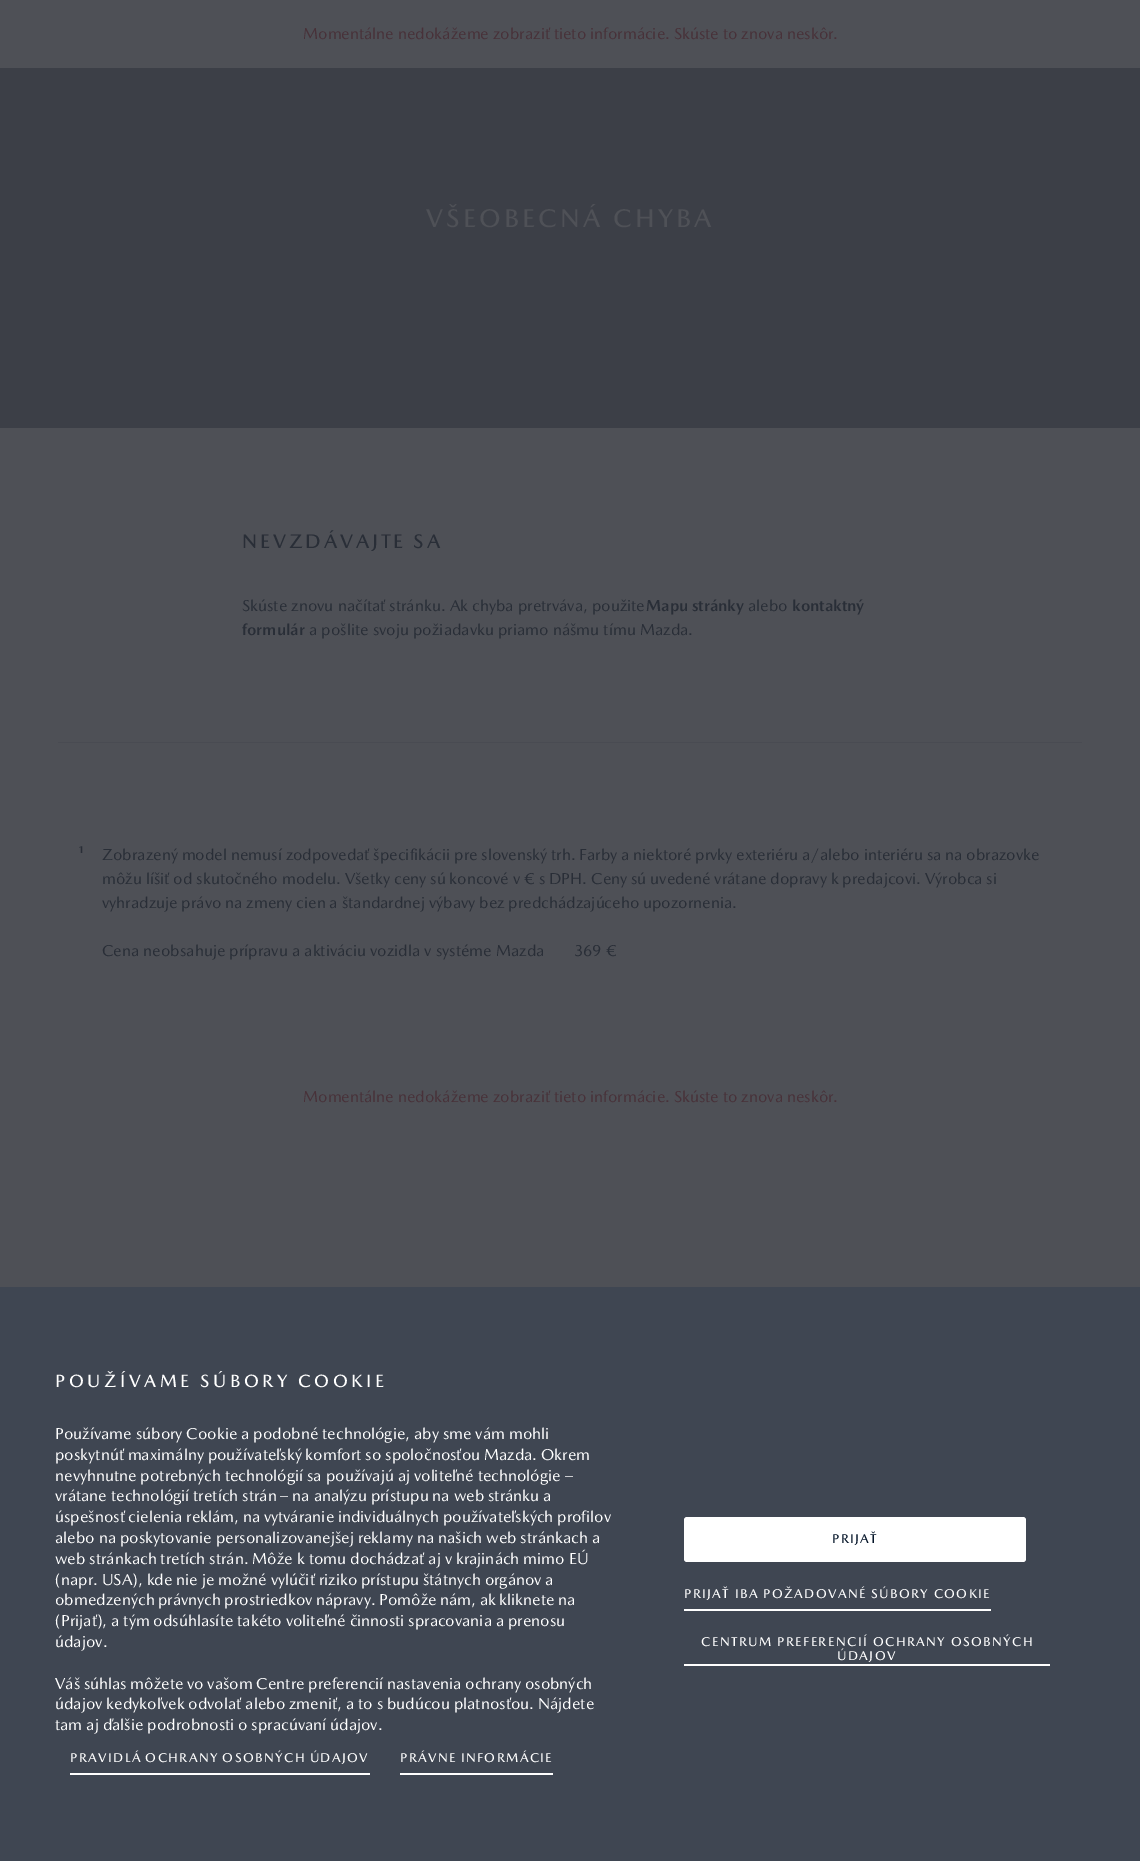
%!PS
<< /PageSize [1140 1861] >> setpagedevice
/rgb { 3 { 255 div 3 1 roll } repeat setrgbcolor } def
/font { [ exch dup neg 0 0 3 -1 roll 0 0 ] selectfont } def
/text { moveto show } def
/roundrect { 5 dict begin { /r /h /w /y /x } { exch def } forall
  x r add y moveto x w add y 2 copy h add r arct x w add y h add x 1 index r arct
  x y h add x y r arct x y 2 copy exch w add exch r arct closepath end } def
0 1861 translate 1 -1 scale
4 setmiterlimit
78 80 86 rgb
0 0 1140 1861 rectfill
60 63 71 rgb
0 68 1140 360 rectfill
73 75 82 rgb
58 742 1024 1 rectfill
63 70 82 rgb
0 1287 1140 574 rectfill
255 255 255 rgb
70 1773 300 2 rectfill
400 1773 153 2 rectfill
684 1517 342 45 3 roundrect fill
684 1609 307 2 rectfill
684 1664 366 2 rectfill
/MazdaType-Regular 16 font
72 49 57 rgb
303 39 moveto -0.25 0 32 (Momentálne nedokážeme zobraziť tieto informácie. Skúste to znova neskôr.) widthshow
/MazdaType-Medium 26 font
79 81 87 rgb
426 227 moveto -0.5 0 32 3.25 0 (VŠEOBECNÁ CHYBA) awidthshow
/MazdaType-Medium 20 font
41 46 55 rgb
242 548 moveto -1 0 32 2.9 0 (NEVZDÁVAJTE SA) awidthshow
/MazdaType-Regular 16 font
(Skúste znovu načítať stránku. Ak chyba pretrváva, použite) 242 611 text
/MazdaType-Bold 16 font
646 611 moveto -0.75 0 32 (Mapu stránky) widthshow
/MazdaType-Regular 16 font
(alebo) 748 611 text
/MazdaType-Bold 16 font
(kontaktný) 792 611 text
(formulár) 242 635 text
/MazdaType-Regular 16 font
(a pošlite svoju požiadavku priamo nášmu tímu Mazda.) 309 635 text
/MazdaType-Bold 10 font
(1) 78 853 text
/MazdaType-Regular 16 font
102 860 moveto -0.3 0 32 (Zobrazený model nemusí zodpovedať špecifikácii pre slovenský trh. Farby a niektoré prvky exteriéru a/alebo interiéru sa na obrazovke) widthshow
102 884 moveto -0.25 0 32 (môžu líšiť od skutočného modelu. Všetky ceny sú koncové v € s DPH. Ceny sú uvedené vrátane dopravy k predajcovi. Výrobca si) widthshow
102 908 moveto -0.25 0 32 (vyhradzuje právo na zmeny cien a štandardnej výbavy bez predchádzajúceho upozornenia.) widthshow
(Cena neobsahuje prípravu a aktiváciu vozidla v systéme Mazda       369 €) 102 956 text
72 49 57 rgb
303 1102 moveto -0.25 0 32 (Momentálne nedokážeme zobraziť tieto informácie. Skúste to znova neskôr.) widthshow
/MazdaType-Medium 18 font
255 255 255 rgb
55 1387 moveto -1 0 32 3.6 0 (POUŽÍVAME SÚBORY COOKIE) awidthshow
/MazdaType-Regular 16 font
55 1439 moveto -0.25 0 32 (Používame súbory Cookie a podobné technológie, aby sme vám mohli) widthshow
55 1460 moveto -0.3 0 32 (poskytnúť maximálny používateľský komfort so spoločnosťou Mazda. Okrem) widthshow
55 1481 moveto -0.25 0 32 (nevyhnutne potrebných technológií sa používajú aj voliteľné technológie –) widthshow
55 1501 moveto -0.25 0 32 (vrátane technológií tretích strán – na analýzu prístupu na web stránku a) widthshow
55 1522 moveto -0.5 0 32 (úspešnosť cielenia reklám, na vytváranie individuálnych používateľských profilov) widthshow
55 1543 moveto -0.25 0 32 (alebo na poskytovanie personalizovanejšej reklamy na našich web stránkach a) widthshow
55 1564 moveto -0.25 0 32 (web stránkach tretích strán. Môže k tomu dochádzať aj v krajinách mimo EÚ) widthshow
55 1585 moveto -0.25 0 32 (\(napr. USA\), kde nie je možné vylúčiť riziko prístupu štátnych orgánov a) widthshow
55 1605 moveto -0.75 0 32 (obmedzených právnych prostriedkov nápravy. Pomôže nám, ak kliknete na) widthshow
55 1626 moveto -0.25 0 32 (\(Prijať\), a tým odsúhlasíte takéto voliteľné činnosti spracovania a prenosu) widthshow
(údajov.) 55 1647 text
55 1689 moveto -0.5 0 32 (Váš súhlas môžete vo vašom Centre preferencií nastavenia ochrany osobných) widthshow
55 1709 moveto -0.25 0 32 (údajov kedykoľvek odvolať alebo zmeniť, a to s budúcou platnosťou. Nájdete) widthshow
55 1730 moveto -0.25 0 32 (tam aj ďalšie podrobnosti o spracúvaní údajov.) widthshow
/MazdaType-Medium 13 font
70 1762 moveto -1 0 32 1.4 0 (PRAVIDLÁ OCHRANY OSOBNÝCH ÚDAJOV) awidthshow
400 1762 moveto -1 0 32 1.4 0 (PRÁVNE INFORMÁCIE) awidthshow
4 20 40 rgb
832 1543 moveto 1.4 0 (PRIJAŤ) ashow
255 255 255 rgb
684 1598 moveto -0.5 0 32 1.4 0 (PRIJAŤ IBA POŽADOVANÉ SÚBORY COOKIE) awidthshow
701 1646 moveto 1.4 0 (CENTRUM PREFERENCIÍ OCHRANY OSOBNÝCH) ashow
837 1660 moveto 1.4 0 (ÚDAJOV) ashow
showpage
